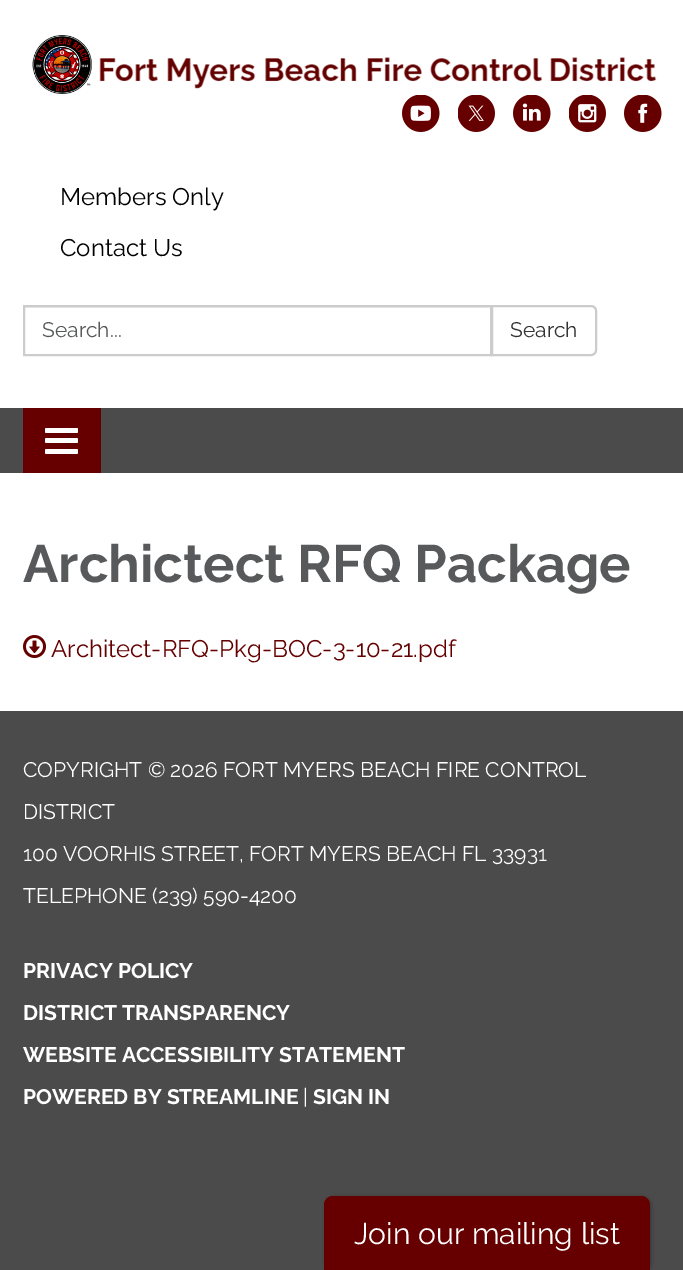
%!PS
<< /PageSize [683 1270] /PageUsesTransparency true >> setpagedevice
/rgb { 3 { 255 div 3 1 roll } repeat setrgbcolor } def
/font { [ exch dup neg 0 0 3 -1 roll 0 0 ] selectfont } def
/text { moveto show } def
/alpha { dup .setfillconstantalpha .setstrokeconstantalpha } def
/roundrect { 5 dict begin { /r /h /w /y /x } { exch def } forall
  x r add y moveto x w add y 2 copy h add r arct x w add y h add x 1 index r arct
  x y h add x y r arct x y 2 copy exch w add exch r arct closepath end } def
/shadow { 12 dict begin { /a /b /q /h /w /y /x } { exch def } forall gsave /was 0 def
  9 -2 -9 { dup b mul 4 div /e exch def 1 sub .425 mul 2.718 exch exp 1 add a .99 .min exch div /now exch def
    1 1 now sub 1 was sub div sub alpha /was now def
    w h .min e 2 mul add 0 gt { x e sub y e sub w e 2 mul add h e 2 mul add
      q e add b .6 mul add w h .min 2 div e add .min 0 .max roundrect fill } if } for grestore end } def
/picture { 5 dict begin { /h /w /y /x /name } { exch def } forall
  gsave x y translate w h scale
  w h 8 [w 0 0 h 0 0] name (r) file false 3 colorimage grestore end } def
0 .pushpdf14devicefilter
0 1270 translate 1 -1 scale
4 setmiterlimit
75 75 75 rgb
0 0 683 1270 rectfill
255 255 255 rgb
0 0 683 408 rectfill
(img_01.rgb) 32 35 625 59 picture
(img_02.rgb) 402 95 38 37 picture
(img_03.rgb) 458 95 37 37 picture
(img_04.rgb) 513 95 38 37 picture
(img_05.rgb) 569 95 37 37 picture
(img_06.rgb) 624 95 38 37 picture
236 236 236 rgb
24 307 467 1 rectfill
204 204 204 rgb
2 setlinewidth
24 306 467 49 rectstroke
255 255 255 rgb
492 306 moveto 99 0 rlineto 3 0 5 2 5 5 rcurveto 0 39 rlineto 0 3 -2 5 -5 5 rcurveto -99 0 rlineto closepath gsave fill grestore
204 204 204 rgb
stroke
102 0 0 rgb
23 408 78 65 rectfill
255 255 255 rgb
45 428 33 5 1.5 roundrect fill
45 438 33 5 1.5 roundrect fill
45 449 33 5 1.5 roundrect fill
0 473 683 238 rectfill
(img_07.rgb) 23 635 23 23 picture
0 0 0 rgb
326 1197 325 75 9 2 0.3 shadow
102 0 0 rgb
333 1196 moveto 308 0 rlineto 5 0 9 4 9 9 rcurveto 0 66 rlineto -326 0 rlineto 0 -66 rlineto 0 -5 4 -9 9 -9 rcurveto closepath fill
/Raleway-Regular 24 font
0 0 0 rgb
(Members Only) 60 205 text
(Contact Us) 60 256 text
/Raleway-Regular 21 font
88 89 91 rgb
(Search...) 42 337 text
51 51 51 rgb
(Search) 510 337 text
/Raleway-Bold 52.5 font
88 89 91 rgb
(Archictect RFQ Package) 23 582 text
/Raleway-Regular 24 font
102 0 0 rgb
(Architect-RFQ-Pkg-BOC-3-10-21.pdf) 51 657 text
/Raleway-Regular 21 font
255 255 255 rgb
(COPYRIGHT © 2026 FORT MYERS BEACH FIRE CONTROL) 23 777 text
(DISTRICT) 23 819 text
(100 VOORHIS STREET, FORT MYERS BEACH FL 33931) 23 861 text
(TELEPHONE \(239\) 590-4200) 23 903 text
/Raleway-Bold 21 font
(PRIVACY POLICY) 23 978 text
(DISTRICT TRANSPARENCY) 23 1020 text
(WEBSITE ACCESSIBILITY STATEMENT) 23 1062 text
(POWERED BY STREAMLINE) 23 1104 text
/Raleway-Regular 21 font
(|) 303 1104 text
/Raleway-Bold 21 font
(SIGN IN) 313 1104 text
/Raleway-Regular 30 font
(Join our mailing list) 354 1244 text
.poppdf14devicefilter showpage
